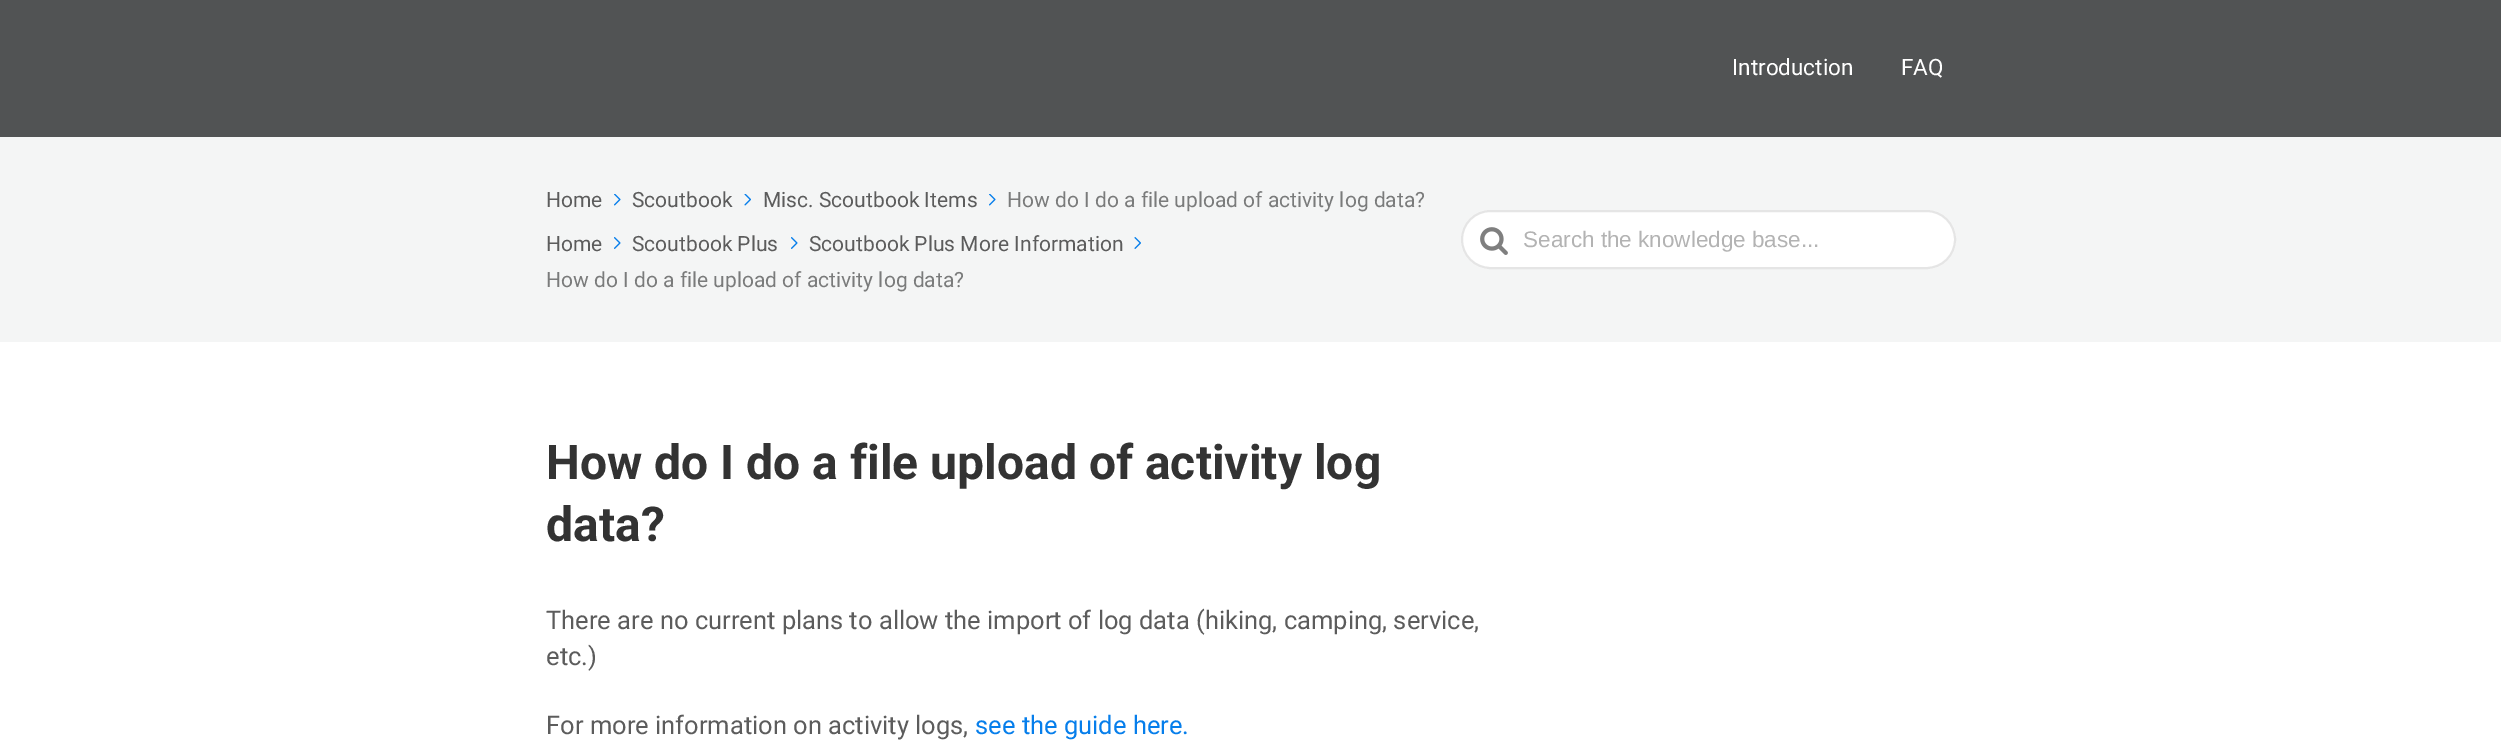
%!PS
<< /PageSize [2501 750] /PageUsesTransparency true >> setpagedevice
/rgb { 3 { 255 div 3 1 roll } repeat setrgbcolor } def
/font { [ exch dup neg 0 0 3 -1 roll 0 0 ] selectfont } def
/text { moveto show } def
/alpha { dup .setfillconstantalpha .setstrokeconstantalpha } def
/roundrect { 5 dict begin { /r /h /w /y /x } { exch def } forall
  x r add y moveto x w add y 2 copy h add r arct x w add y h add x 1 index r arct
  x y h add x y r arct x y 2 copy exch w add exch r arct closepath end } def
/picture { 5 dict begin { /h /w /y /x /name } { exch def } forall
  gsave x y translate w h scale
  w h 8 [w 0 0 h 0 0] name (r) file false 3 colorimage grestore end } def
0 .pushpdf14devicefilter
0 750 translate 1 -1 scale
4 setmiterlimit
255 255 255 rgb
0 0 2501 750 rectfill
81 83 84 rgb
0 0 2501 137 rectfill
244 245 245 rgb
0 137 2501 205 rectfill
(img_01.rgb) 614 194 7 12 picture
(img_02.rgb) 744 194 7 12 picture
(img_01.rgb) 989 194 7 12 picture
(img_03.rgb) 614 237 7 12 picture
(img_03.rgb) 791 237 7 12 picture
(img_04.rgb) 1134 237 7 12 picture
255 255 255 rgb
1461 210 495 59 29.5 roundrect fill
0.5 alpha
204 204 204 rgb
2 setlinewidth
1462 211 493 57 28.5 roundrect stroke
1 alpha
(img_05.rgb) 1480 227 28 28 picture
/Roboto-Regular 22.5 font
255 255 255 rgb
(Introduction) 1732 75 text
(FAQ) 1901 75 text
/Roboto-Regular 21 font
92 92 92 rgb
(Home) 546 207 text
(Scoutbook) 632 207 text
(Misc. Scoutbook Items) 763 207 text
122 123 123 rgb
(How do I do a file upload of activity log data?) 1007 207 text
92 92 92 rgb
(Home) 546 251 text
(Scoutbook Plus) 632 251 text
(Scoutbook Plus More Information) 809 251 text
122 123 123 rgb
(How do I do a file upload of activity log data?) 546 287 text
/LiberationSans-Regular 22.5 font
179 179 179 rgb
(Search the knowledge base...) 1523 247 text
/Roboto-Bold 48 font
51 51 51 rgb
(How do I do a file upload of activity log) 546 479 text
(data?) 546 541 text
/Roboto-Regular 25.5 font
92 92 92 rgb
(There are no current plans to allow the import of log data \(hiking, camping, service,) 546 629 text
(etc.\)) 546 665 text
(For more information on activity logs,) 546 734 text
6 126 235 rgb
(see the guide here.) 975 734 text
.poppdf14devicefilter showpage
